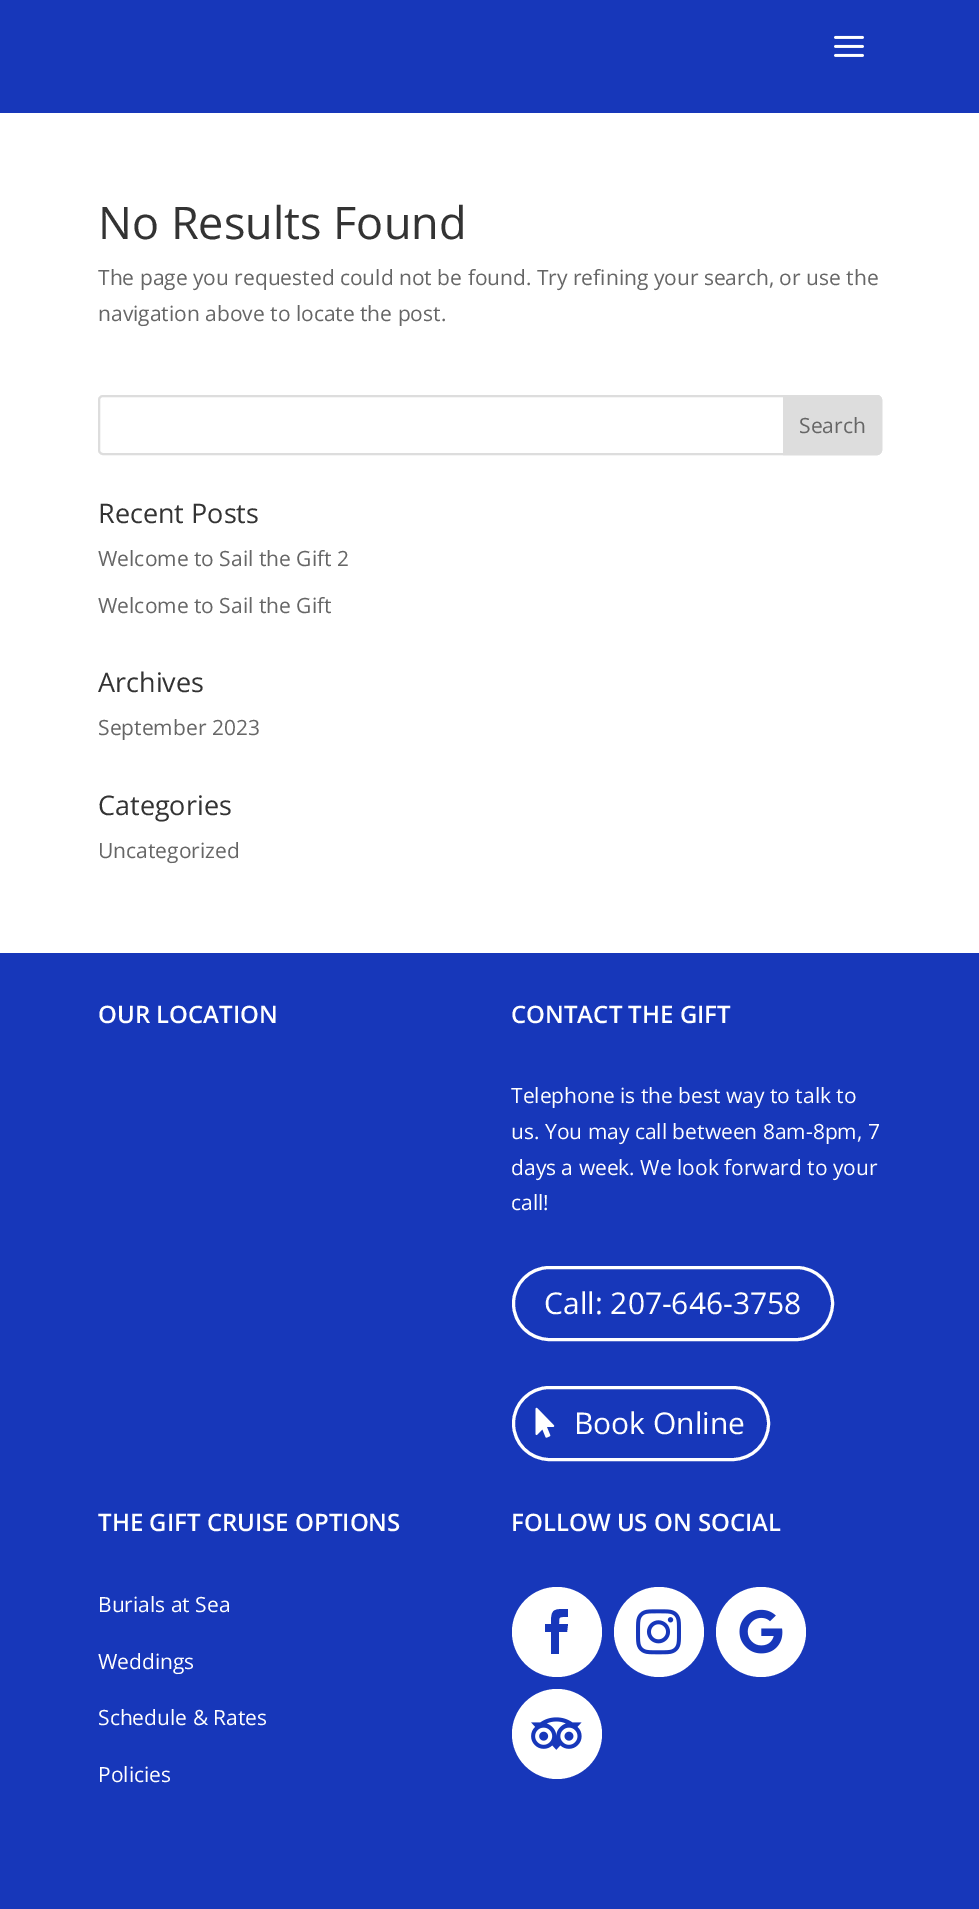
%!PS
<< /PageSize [979 1909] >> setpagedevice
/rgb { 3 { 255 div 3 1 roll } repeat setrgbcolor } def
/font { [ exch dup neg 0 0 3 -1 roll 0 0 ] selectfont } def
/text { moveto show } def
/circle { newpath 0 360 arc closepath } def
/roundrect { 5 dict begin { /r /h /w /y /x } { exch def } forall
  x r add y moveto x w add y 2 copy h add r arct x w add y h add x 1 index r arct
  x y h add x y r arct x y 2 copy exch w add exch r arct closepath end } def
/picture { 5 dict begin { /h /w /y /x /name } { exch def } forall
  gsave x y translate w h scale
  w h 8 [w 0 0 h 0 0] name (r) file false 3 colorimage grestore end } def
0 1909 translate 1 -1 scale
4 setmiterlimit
255 255 255 rgb
0 0 979 1909 rectfill
23 55 186 rgb
0 0 979 113 rectfill
(img_01.rgb) 834 35 30 22 picture
221 221 221 rgb
2 setlinewidth
99 396 782 58 4 roundrect stroke
784 396 moveto 93 0 rlineto 2 0 4 2 4 4 rcurveto 0 50 rlineto 0 2 -2 4 -4 4 rcurveto -93 0 rlineto closepath gsave fill grestore
stroke
23 55 186 rgb
0 953 979 956 rectfill
255 255 255 rgb
3 setlinewidth
513.5 1267.5 319 72 36 roundrect stroke
513.5 1387.5 255 72 36 roundrect stroke
(img_02.rgb) 535 1407 20 31 picture
557 1632 45 circle fill
23 55 186 rgb
551 1654 moveto 8 0 rlineto 0 -22 rlineto 8 0 rlineto 1 -8 rlineto -9 0 rlineto 0 -8 0 -7 9 -7 rcurveto 0 -8 rlineto -15 0 -17 0 -17 15 rcurveto -6 0 rlineto 0 8 rlineto 6 0 rlineto closepath fill
255 255 255 rgb
659 1632 45 circle fill
(img_03.rgb) 636 1609 45 46 picture
761 1632 45 circle fill
(img_04.rgb) 739 1609 44 45 picture
557 1734 45 circle fill
(img_05.rgb) 531 1717 51 33 picture
/OpenSans-Regular 45 font
51 51 51 rgb
(No Results Found) 98 239 text
/OpenSans-Regular 21 font
102 102 102 rgb
(The page you requested could not be found. Try refining your search, or use the) 98 285 text
(navigation above to locate the post.) 98 321 text
(Search) 799 433 text
/OpenSans-Regular 27 font
51 51 51 rgb
(Recent Posts) 98 523 text
/OpenSans-Regular 21 font
102 102 102 rgb
(Welcome to Sail the Gift 2) 98 566 text
(Welcome to Sail the Gift) 98 613 text
/OpenSans-Regular 27 font
51 51 51 rgb
(Archives) 98 692 text
/OpenSans-Regular 21 font
102 102 102 rgb
(September 2023) 98 735 text
/OpenSans-Regular 27 font
51 51 51 rgb
(Categories) 98 815 text
/OpenSans-Regular 21 font
102 102 102 rgb
(Uncategorized) 98 858 text
/OpenSans-SemiBold 24 font
255 255 255 rgb
(OUR LOCATION) 98 1023 text
(CONTACT THE GIFT) 511 1023 text
/OpenSans-Regular 21 font
(Telephone is the best way to talk to) 511 1103 text
(us. You may call between 8am-8pm, 7) 511 1139 text
(days a week. We look forward to your) 511 1175 text
(call!) 511 1210 text
/OpenSans-Regular 30 font
(Call: 207-646-3758) 544 1314 text
(Book Online) 574 1434 text
/OpenSans-SemiBold 24 font
(THE GIFT CRUISE OPTIONS) 98 1531 text
/OpenSans-Regular 21 font
(Burials at Sea) 98 1612 text
(Weddings) 98 1669 text
(Schedule & Rates) 98 1725 text
(Policies) 98 1782 text
/OpenSans-SemiBold 24 font
(FOLLOW US ON SOCIAL) 511 1531 text
showpage
